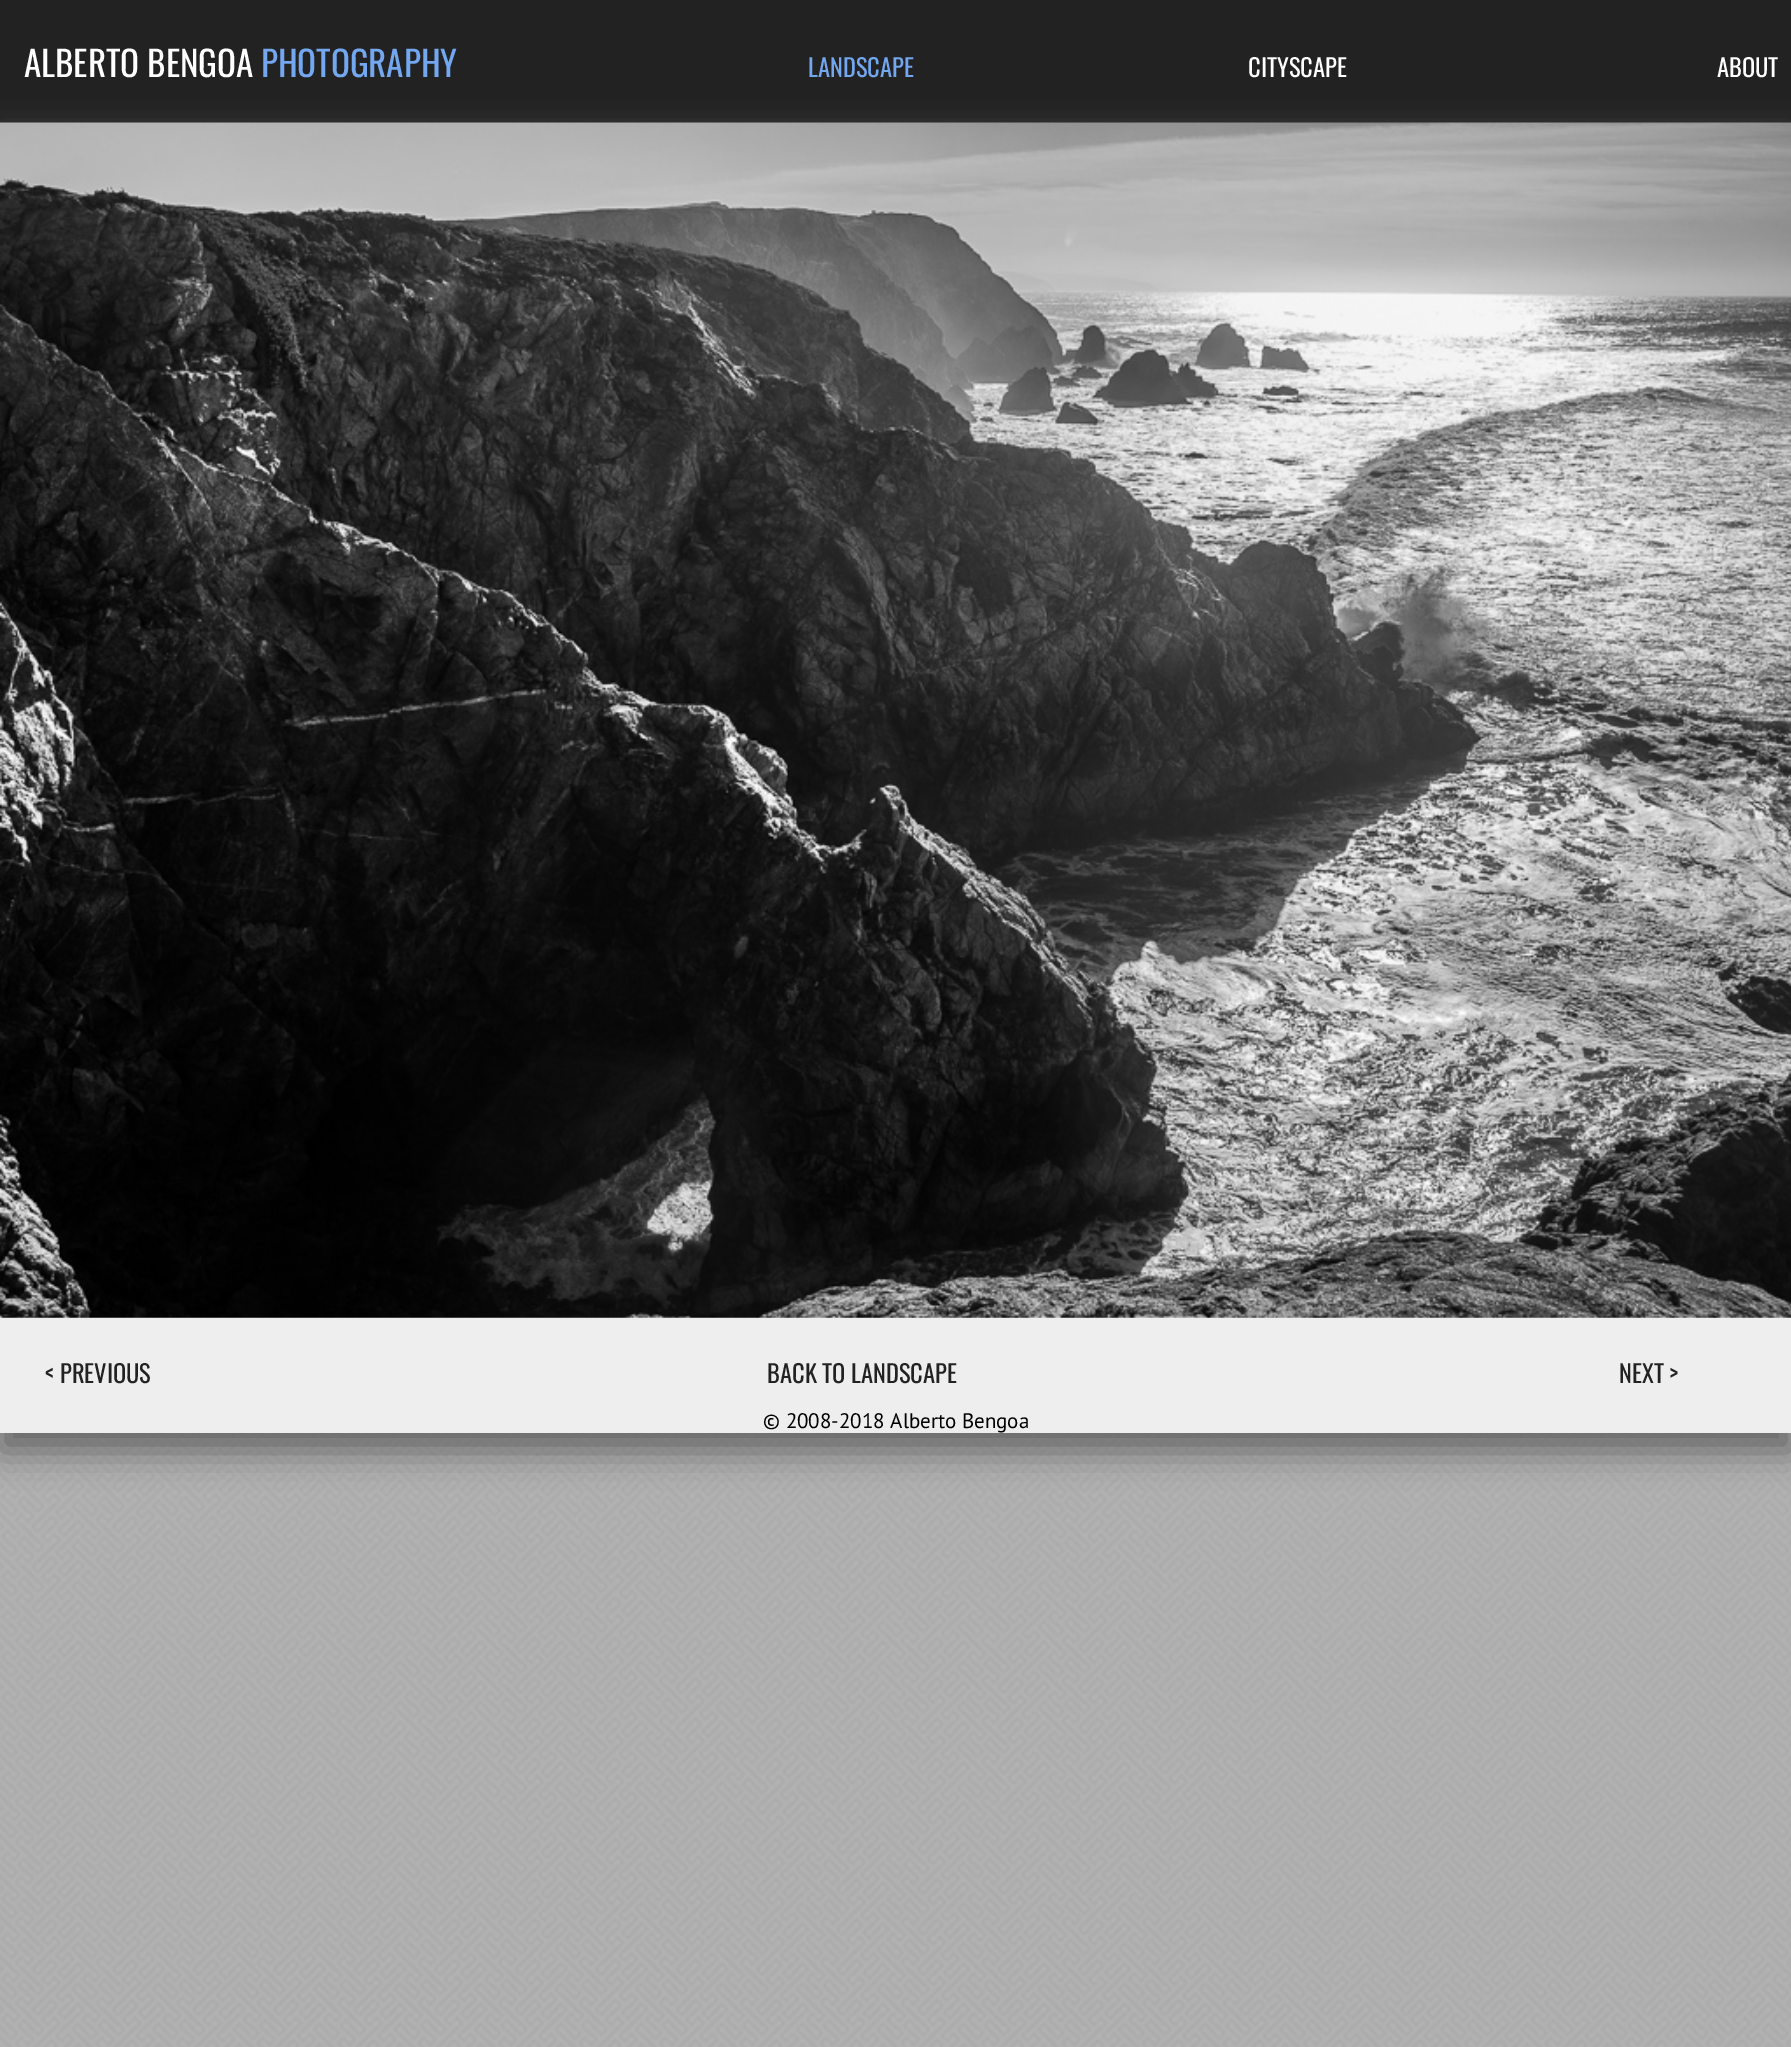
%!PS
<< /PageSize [1791 2047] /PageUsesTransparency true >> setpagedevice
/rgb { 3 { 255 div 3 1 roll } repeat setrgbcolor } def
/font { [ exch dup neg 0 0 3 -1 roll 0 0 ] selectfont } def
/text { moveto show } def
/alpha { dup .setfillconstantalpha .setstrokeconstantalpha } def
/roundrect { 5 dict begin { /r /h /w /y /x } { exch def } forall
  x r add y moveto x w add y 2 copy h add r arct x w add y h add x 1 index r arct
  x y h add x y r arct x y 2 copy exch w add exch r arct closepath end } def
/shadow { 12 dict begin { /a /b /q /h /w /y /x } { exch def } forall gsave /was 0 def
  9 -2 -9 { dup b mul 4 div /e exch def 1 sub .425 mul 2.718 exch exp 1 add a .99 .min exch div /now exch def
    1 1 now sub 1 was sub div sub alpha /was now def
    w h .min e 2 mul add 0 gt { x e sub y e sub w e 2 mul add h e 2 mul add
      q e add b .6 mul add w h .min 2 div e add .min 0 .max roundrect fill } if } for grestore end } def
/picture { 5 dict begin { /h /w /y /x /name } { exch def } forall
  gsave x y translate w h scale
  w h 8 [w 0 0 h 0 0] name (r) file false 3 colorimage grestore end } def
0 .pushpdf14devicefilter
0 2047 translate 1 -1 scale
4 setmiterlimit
255 255 255 rgb
0 0 1791 2047 rectfill
(img_01.rgb) 0 1433 1791 614 picture
34 34 34 rgb
0 0 1791 123 rectfill
102 102 102 rgb
0 140 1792 1311 0 17.5 1 shadow
238 238 238 rgb
0 1317 1791 116 rectfill
(img_02.rgb) 0 122 1791 1196 picture
/Oswald-Regular 35 font
255 255 255 rgb
(ALBERTO BENGOA) 24 77 text
115 167 240 rgb
(PHOTOGRAPHY) 261 77 text
/Oswald-Regular 24.5 font
(LANDSCAPE) 808 77 text
255 255 255 rgb
(CITYSCAPE) 1248 77 text
(ABOUT) 1717 77 text
34 34 34 rgb
(< PREVIOUS) 45 1383 text
(BACK TO LANDSCAPE) 767 1383 text
(NEXT >) 1619 1383 text
/PTSans-Regular 21 font
0 0 0 rgb
(© 2008-2018 Alberto Bengoa) 763 1428 text
.poppdf14devicefilter showpage
